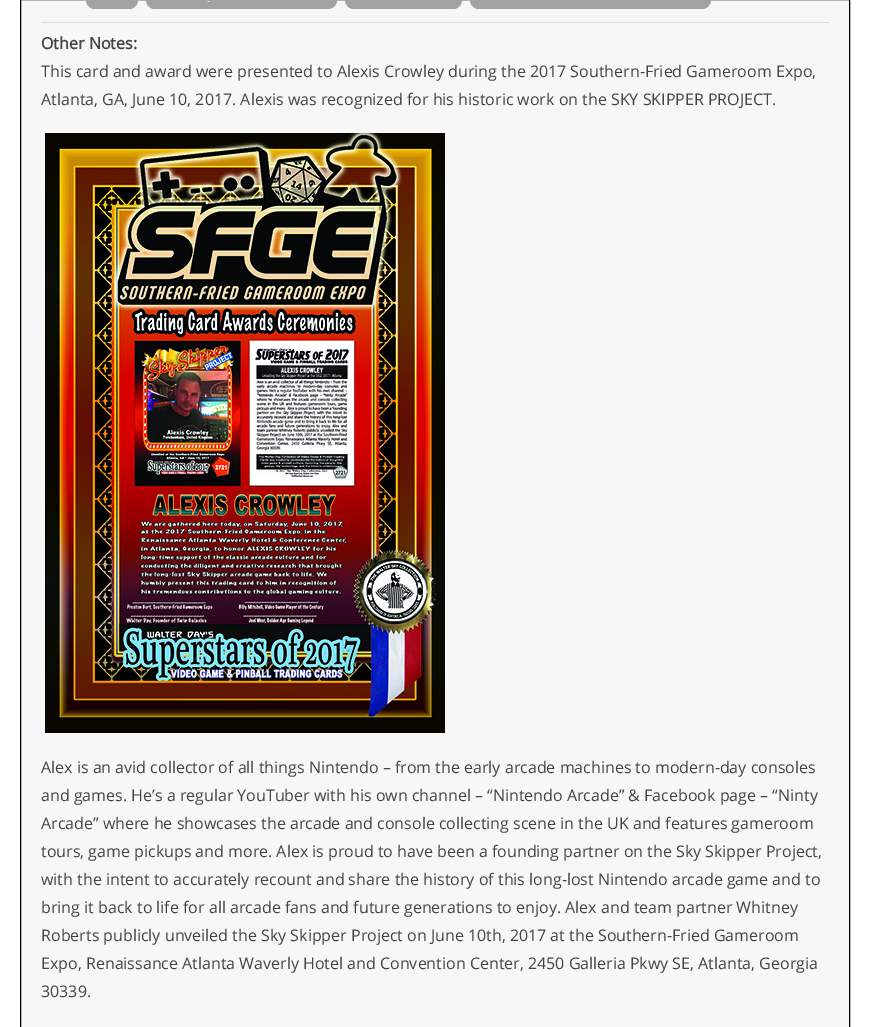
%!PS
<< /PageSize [870 1027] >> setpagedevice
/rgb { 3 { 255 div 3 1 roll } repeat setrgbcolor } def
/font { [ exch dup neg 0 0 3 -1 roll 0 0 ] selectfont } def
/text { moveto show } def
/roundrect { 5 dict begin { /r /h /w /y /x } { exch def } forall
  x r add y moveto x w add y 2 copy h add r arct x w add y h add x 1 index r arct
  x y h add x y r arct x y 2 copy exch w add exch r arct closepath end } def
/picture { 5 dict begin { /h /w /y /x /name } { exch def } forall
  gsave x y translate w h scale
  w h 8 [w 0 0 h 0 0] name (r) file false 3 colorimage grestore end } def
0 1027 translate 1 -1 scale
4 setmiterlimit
255 255 255 rgb
0 0 870 1027 rectfill
247 247 247 rgb
20.5 -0.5 moveto 829 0 rlineto 0 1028 rlineto -829 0 rlineto closepath gsave fill grestore
0 0 0 rgb
stroke
162 162 162 rgb
86 -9 52 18 9 roundrect fill
146 -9 191 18 9 roundrect fill
345 -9 117 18 9 roundrect fill
470 -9 241 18 9 roundrect fill
221 221 221 rgb
41 22 788 1 rectfill
(img_01.rgb) 45 133 400 600 picture
/OpenSans-Regular 10 font
255 255 255 rgb
(-) 207 4 text
/OpenSans-Bold 16 font
68 68 68 rgb
(Other Notes:) 41 49 text
/OpenSans-Regular 16 font
(This card and award were presented to Alexis Crowley during the 2017 Southern-Fried Gameroom Expo,) 41 77 text
(Atlanta, GA, June 10, 2017. Alexis was recognized for his historic work on the SKY SKIPPER PROJECT.) 41 105 text
(Alex is an avid collector of all things Nintendo – from the early arcade machines to modern-day consoles) 41 773 text
(and games. He’s a regular YouTuber with his own channel – “Nintendo Arcade” & Facebook page – “Ninty) 41 801 text
(Arcade” where he showcases the arcade and console collecting scene in the UK and features gameroom) 41 829 text
(tours, game pickups and more. Alex is proud to have been a founding partner on the Sky Skipper Project,) 41 857 text
(with the intent to accurately recount and share the history of this long-lost Nintendo arcade game and to) 41 885 text
(bring it back to life for all arcade fans and future generations to enjoy. Alex and team partner Whitney) 41 913 text
(Roberts publicly unveiled the Sky Skipper Project on June 10th, 2017 at the Southern-Fried Gameroom) 41 941 text
(Expo, Renaissance Atlanta Waverly Hotel and Convention Center, 2450 Galleria Pkwy SE, Atlanta, Georgia) 41 969 text
(30339.) 41 997 text
showpage
